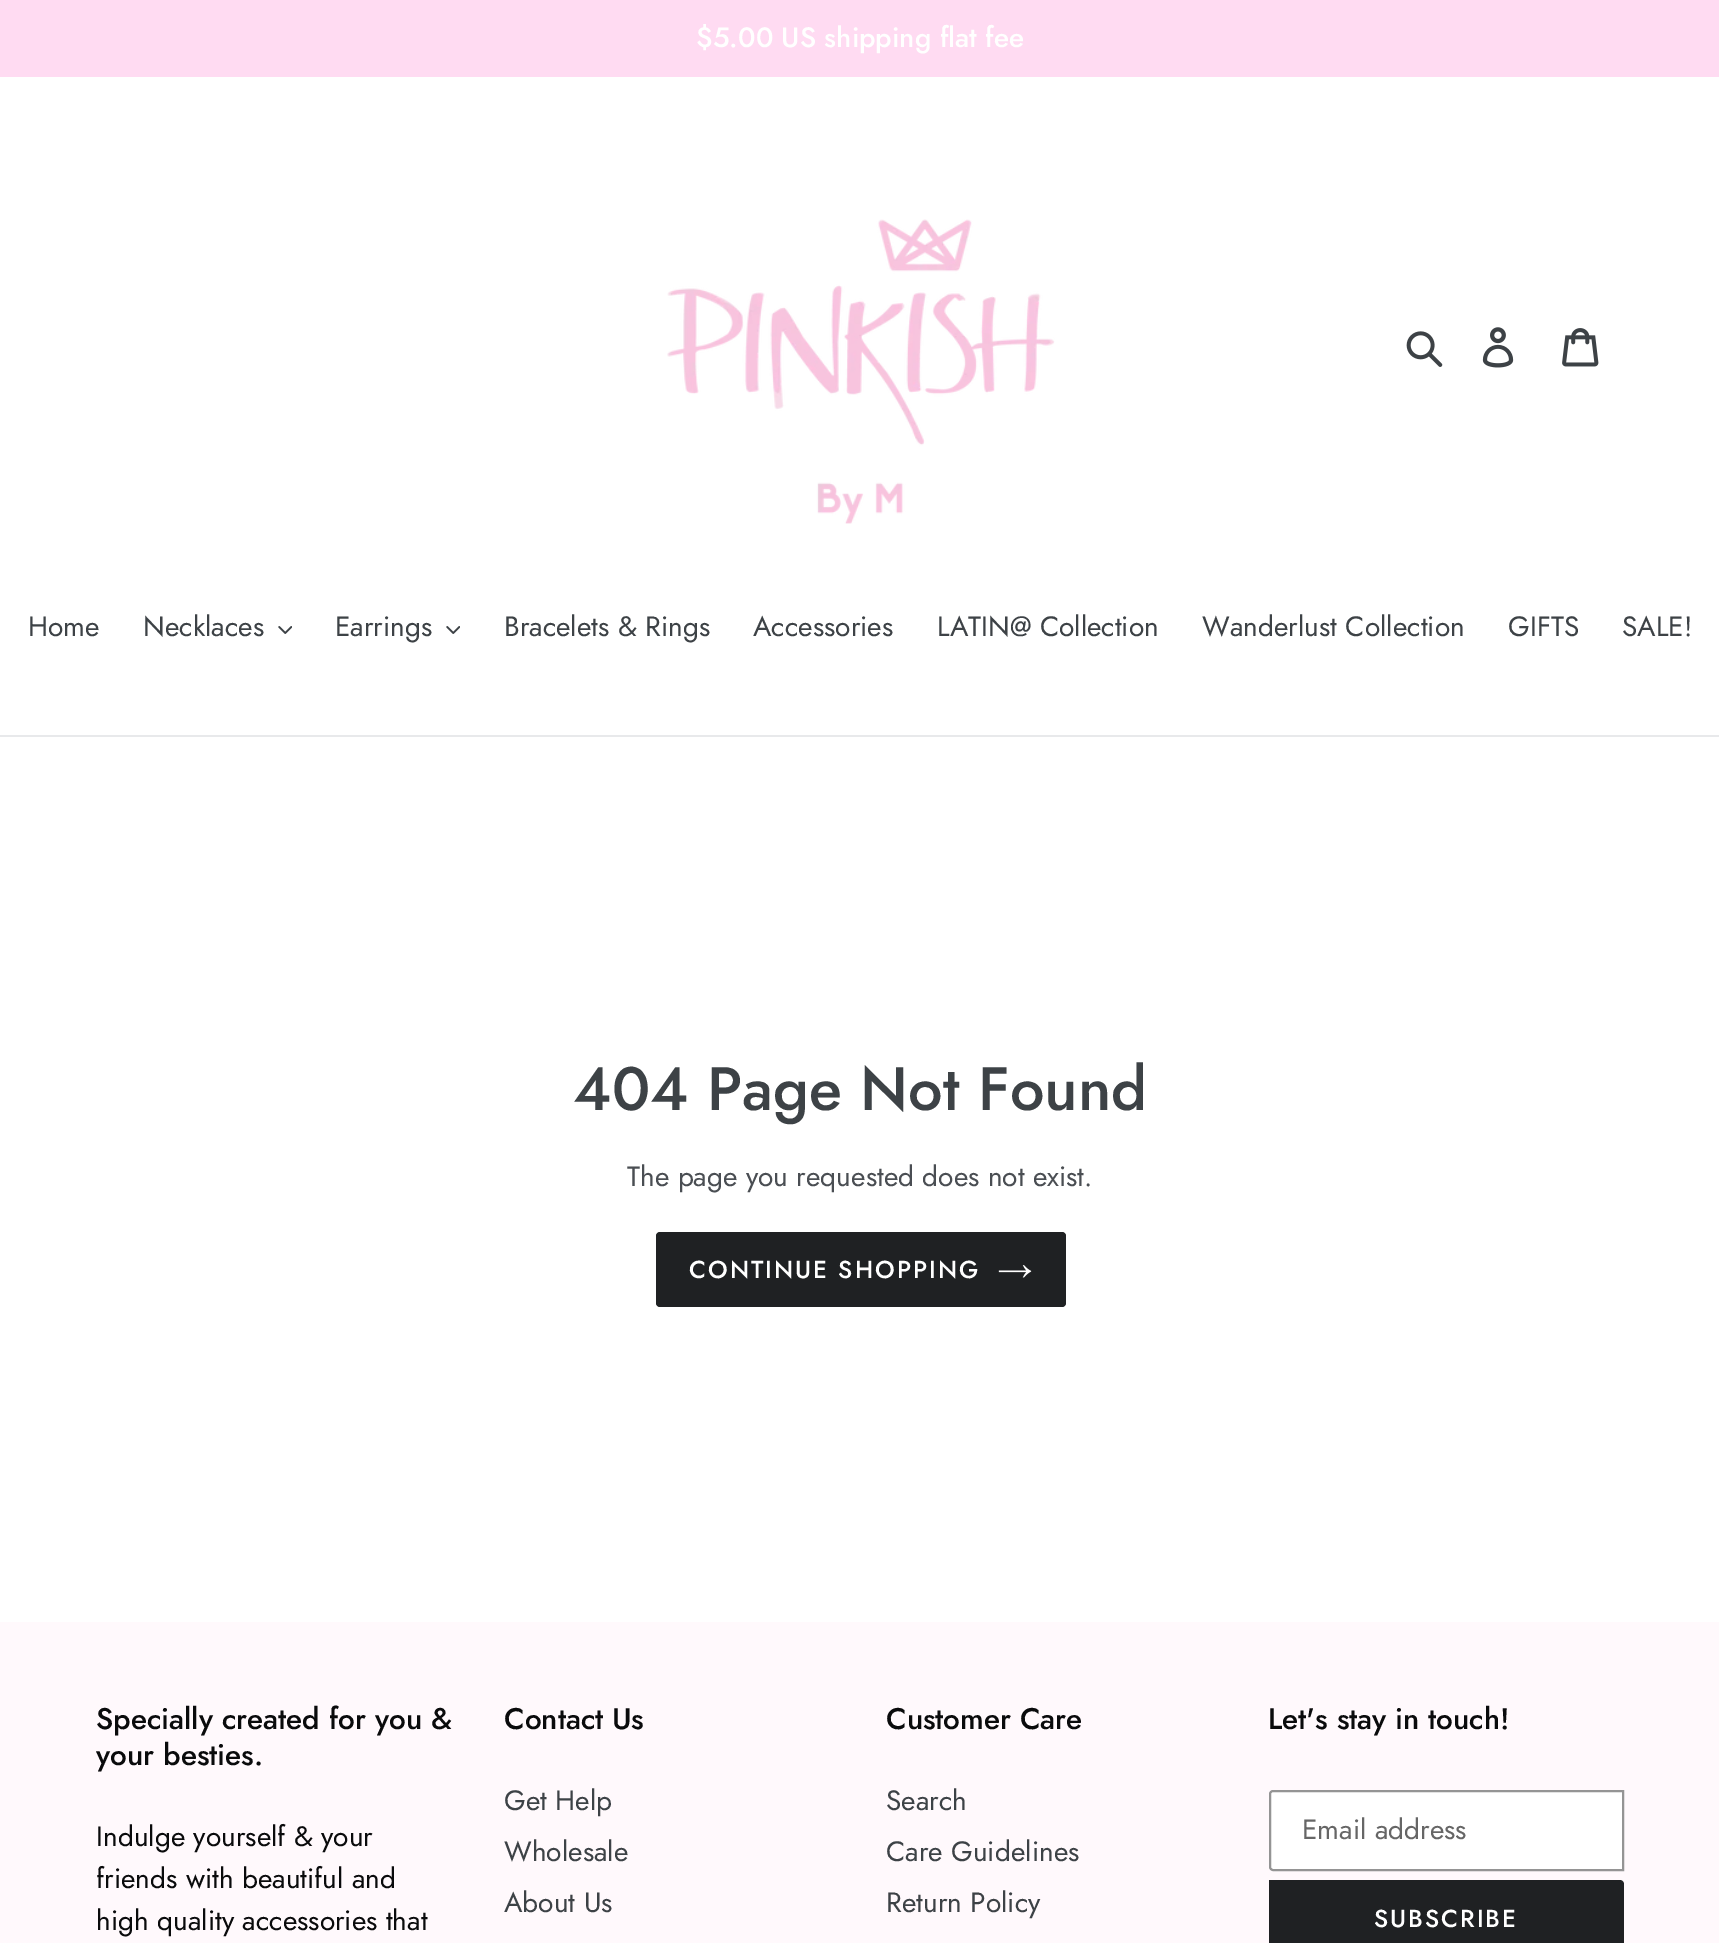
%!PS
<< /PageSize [1719 1943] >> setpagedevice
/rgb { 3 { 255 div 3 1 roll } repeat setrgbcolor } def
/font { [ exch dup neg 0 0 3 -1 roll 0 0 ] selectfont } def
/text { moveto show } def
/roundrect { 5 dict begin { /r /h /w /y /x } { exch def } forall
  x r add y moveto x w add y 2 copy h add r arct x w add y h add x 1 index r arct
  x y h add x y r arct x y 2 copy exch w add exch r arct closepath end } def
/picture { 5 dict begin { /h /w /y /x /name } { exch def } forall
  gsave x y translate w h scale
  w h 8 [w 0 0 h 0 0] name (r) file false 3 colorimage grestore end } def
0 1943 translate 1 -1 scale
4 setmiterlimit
255 255 255 rgb
0 0 1719 1943 rectfill
255 219 242 rgb
0 0 1719 77 rectfill
(img_01.rgb) 667 219 388 305 picture
(img_02.rgb) 1406 331 37 36 picture
(img_03.rgb) 1482 327 32 41 picture
(img_04.rgb) 1562 328 37 39 picture
232 233 235 rgb
0 735 1719 2 rectfill
(img_05.rgb) 278 626 14 8 picture
(img_05.rgb) 446 626 14 8 picture
31 33 35 rgb
656 1232 410 75 4 roundrect fill
(img_06.rgb) 998 1265 34 13 picture
255 249 252 rgb
0 1622 1719 321 rectfill
255 255 255 rgb
1273 1791 moveto 350 0 rlineto 0 79 rlineto -350 0 rlineto -1.5 0 -3 -1.5 -3 -3 rcurveto 0 -73 rlineto 0 -1.5 1.5 -3 3 -3 rcurveto closepath gsave fill grestore
148 148 148 rgb
2 setlinewidth
stroke
31 33 35 rgb
1269 1880 moveto 351 0 rlineto 2 0 4 2 4 4 rcurveto 0 59 rlineto 0 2 -2 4 -4 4 rcurveto -351 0 rlineto closepath fill
/Jost-Medium 28 font
255 255 255 rgb
($5.00 US shipping flat fee) 696 47 text
/Jost-Regular 28 font
61 66 70 rgb
(Home) 28 636 text
(Necklaces) 143 636 text
(Earrings) 335 636 text
(Bracelets & Rings) 504 636 text
(Accessories) 753 636 text
(LATIN@ Collection) 937 636 text
(Wanderlust Collection) 1202 636 text
(GIFTS) 1508 636 text
(SALE!) 1622 636 text
/Jost-Medium 61.25 font
(404 Page Not Found) 573 1110 text
/Jost-Regular 28 font
74 78 83 rgb
(The page you requested does not exist.) 627 1186 text
/Jost-Medium 24.5 font
255 255 255 rgb
689 1278 moveto 2 0 (CONTINUE SHOPPING) ashow
/Jost-Medium 29.75 font
10 11 12 rgb
(Specially created for you &) 96 1729 text
(your besties.) 96 1765 text
/Jost-Regular 28 font
(Indulge yourself & your) 96 1846 text
(friends with beautiful and) 96 1888 text
(high quality accessories that) 96 1930 text
/Jost-Medium 29.75 font
(Contact Us) 504 1729 text
/Jost-Regular 28 font
61 66 70 rgb
(Get Help) 504 1810 text
(Wholesale) 504 1861 text
(About Us) 504 1912 text
/Jost-Medium 29.75 font
10 11 12 rgb
(Customer Care) 886 1729 text
/Jost-Regular 28 font
61 66 70 rgb
(Search) 886 1810 text
(Care Guidelines) 886 1861 text
(Return Policy) 886 1912 text
/Jost-Medium 29.75 font
10 11 12 rgb
(Let's stay in touch!) 1268 1729 text
/Jost-Regular 28 font
102 102 102 rgb
(Email address) 1302 1839 text
/Jost-Medium 24.5 font
255 255 255 rgb
1374 1927 moveto 2 0 (SUBSCRIBE) ashow
showpage
